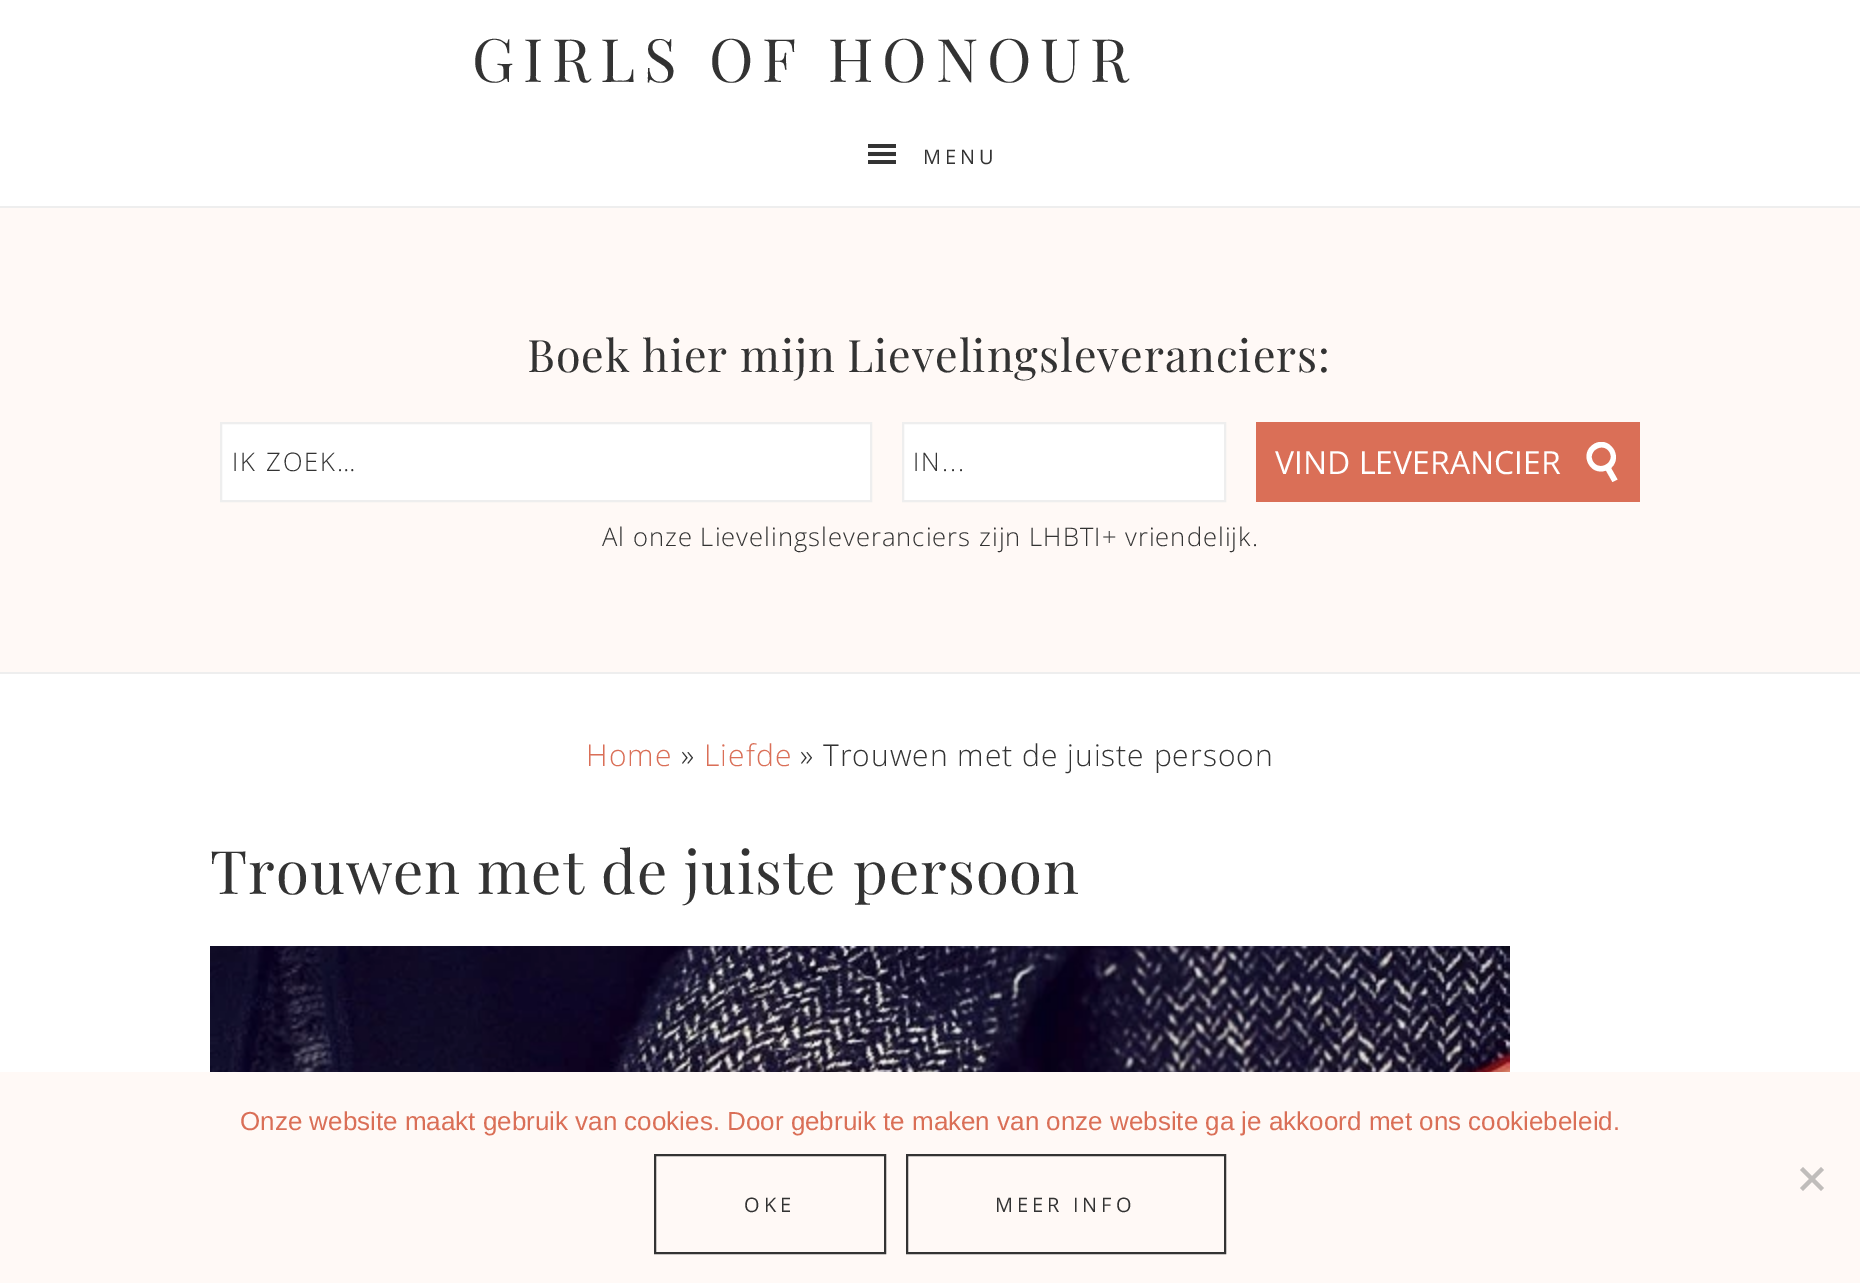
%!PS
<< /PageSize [1860 1283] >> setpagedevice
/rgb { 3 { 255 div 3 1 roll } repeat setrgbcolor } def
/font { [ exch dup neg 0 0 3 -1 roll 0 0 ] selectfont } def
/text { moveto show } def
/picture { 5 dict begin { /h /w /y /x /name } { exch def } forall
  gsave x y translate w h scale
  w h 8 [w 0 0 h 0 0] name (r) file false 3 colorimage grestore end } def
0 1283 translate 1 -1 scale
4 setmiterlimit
255 255 255 rgb
0 0 1860 1283 rectfill
(img_01.rgb) 868 144 28 20 picture
255 249 246 rgb
0 208 1860 464 rectfill
238 238 238 rgb
0 206 1860 2 rectfill
0 672 1860 2 rectfill
255 255 255 rgb
221 423 moveto 650 0 rlineto 0 78 rlineto -650 0 rlineto closepath gsave fill grestore
238 238 238 rgb
2 setlinewidth
stroke
255 255 255 rgb
903 423 moveto 322 0 rlineto 0 78 rlineto -322 0 rlineto closepath gsave fill grestore
238 238 238 rgb
stroke
218 111 87 rgb
1256 422 384 80 rectfill
gsave
1582 442 40 40 rectclip
255 255 255 rgb
1594 444 moveto -15.5 9 -4.5 32.5 12 26.5 rcurveto 6.5 11.5 rlineto 5 -2.5 rlineto -6.5 -11.5 rlineto 13 -11.5 -2 -33 -17 -24 rcurveto closepath 1609.5 452 moveto 6 10.5 -10 20 -16.5 9.5 rcurveto -6 -10.5 10 -20 16.5 -9.5 rcurveto closepath fill
grestore
(img_02.rgb) 210 946 1300 126 picture
255 249 246 rgb
0 1072 1860 211 rectfill
192 189 187 rgb
1821 1167 moveto 3 3 rlineto -21 21 rlineto -3 -3 rlineto closepath fill
1800 1170 moveto 3 -3 rlineto 21 21 rlineto -3 3 rlineto closepath fill
51 51 51 rgb
655 1155 230 98 rectstroke
907 1155 318 98 rectstroke
/PlayfairDisplay-Regular 60 font
472 82 moveto 8.75 0 (GIRLS OF HONOUR) ashow
/OpenSans-Regular 20 font
923 164 moveto 4 0 (MENU) ashow
/PlayfairDisplay-Regular 44.75 font
527 372 moveto -0.5 0 32 1 0 (Boek hier mijn Lievelingsleveranciers:) awidthshow
/OpenSans-Light 25.6 font
232 471 moveto 2 0 (IK ZOEK…) ashow
913 471 moveto 2 0 (IN...) ashow
/OpenSans-Regular 32 font
255 255 255 rgb
(VIND LEVERANCIER) 1275 474 text
/OpenSans-Light 25.6 font
51 51 51 rgb
602 546 moveto 1 0 (Al onze Lievelingsleveranciers zijn LHBTI+ vriendelijk.) ashow
/OpenSans-Light 30 font
218 111 87 rgb
586 766 moveto 1 0 (Home) ashow
51 51 51 rgb
681 766 moveto 1 0 (») ashow
218 111 87 rgb
704 766 moveto 1 0 (Liefde) ashow
51 51 51 rgb
800 766 moveto 1 0 (» Trouwen met de juiste persoon) ashow
/PlayfairDisplay-Regular 60 font
210 894 moveto 1 0 (Trouwen met de juiste persoon) ashow
/LiberationSans-Regular 26 font
218 111 87 rgb
(Onze website maakt gebruik van cookies. Door gebruik te maken van onze website ga je akkoord met ons cookiebeleid.) 240 1130 text
/OpenSans-Regular 20 font
51 51 51 rgb
744 1212 moveto 4 0 (OKE) ashow
995 1212 moveto 4 0 (MEER INFO) ashow
showpage
